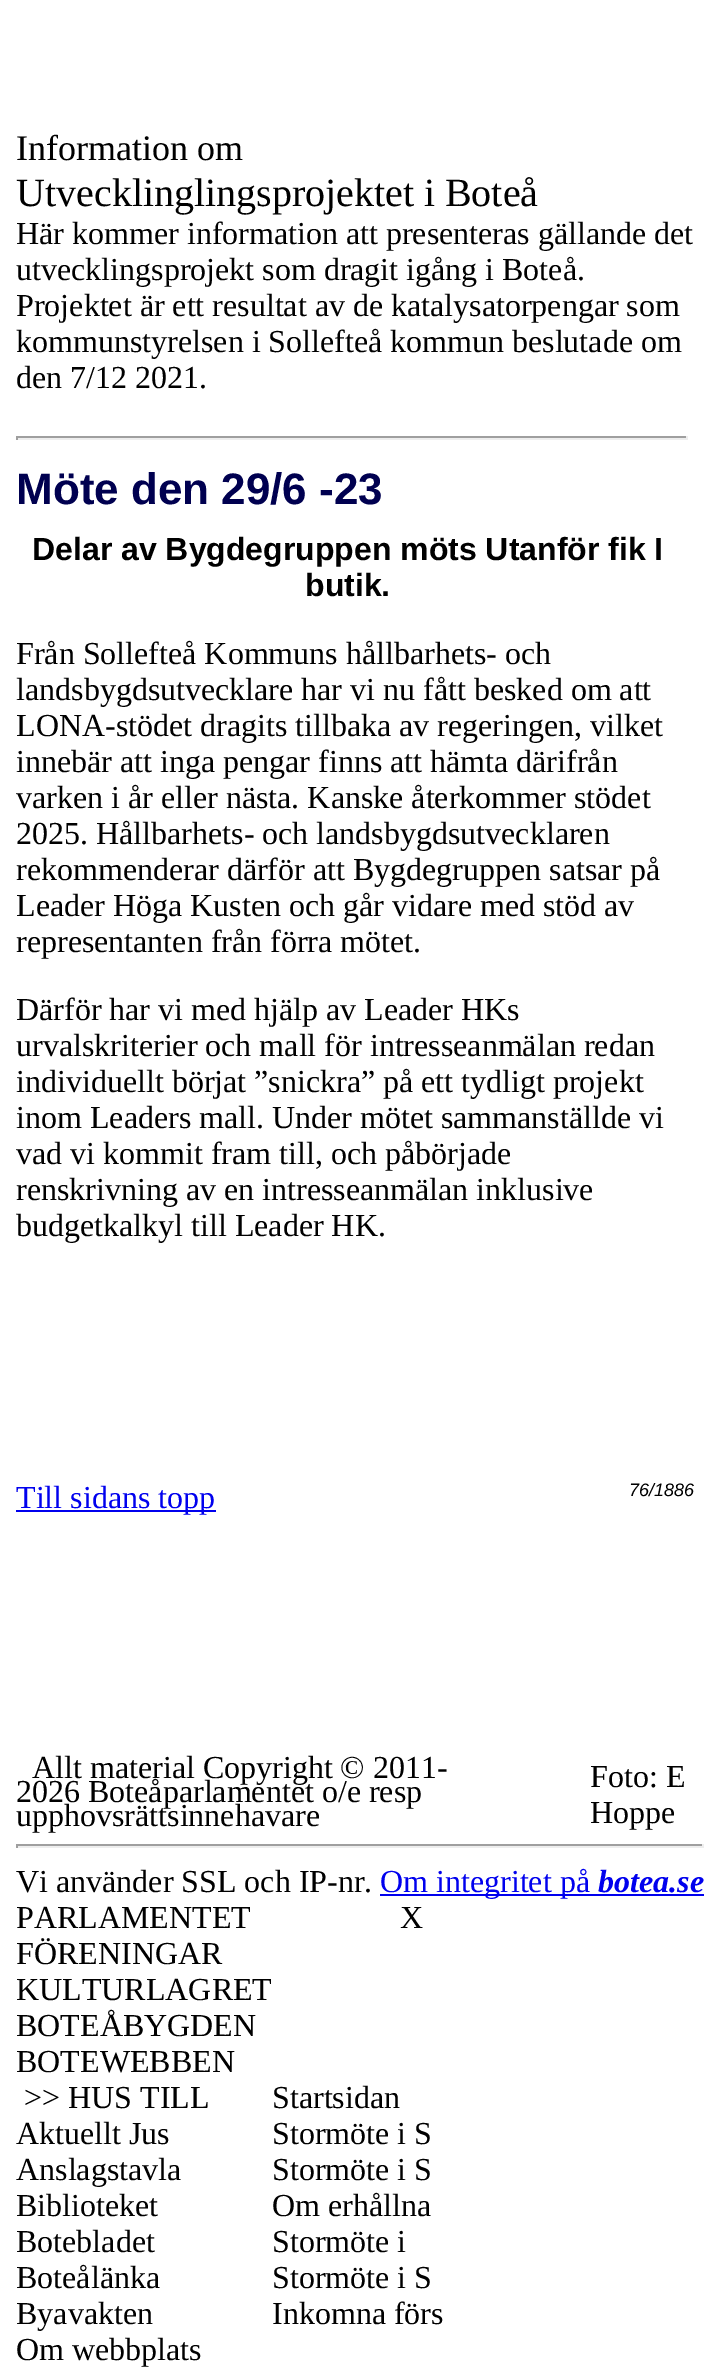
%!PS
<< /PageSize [719 2368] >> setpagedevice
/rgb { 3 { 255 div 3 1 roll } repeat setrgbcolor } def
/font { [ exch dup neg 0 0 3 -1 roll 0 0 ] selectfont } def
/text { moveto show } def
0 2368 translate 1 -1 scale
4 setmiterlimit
255 255 255 rgb
0 0 719 2368 rectfill
159 159 159 rgb
16 436 672 2 rectfill
238 238 238 rgb
686 436 2 4 rectfill
16 438 672 2 rectfill
159 159 159 rgb
16 436 2 4 rectfill
0 0 238 rgb
16 1510 200 2 rectfill
159 159 159 rgb
16 1844 688 2 rectfill
238 238 238 rgb
702 1844 2 4 rectfill
16 1846 688 2 rectfill
159 159 159 rgb
16 1844 2 4 rectfill
0 0 238 rgb
380 1894 324 2 rectfill
/LiberationSerif-Regular 36 font
0 0 0 rgb
(Information om) 16 160 text
/LiberationSerif-Regular 40 font
(Utvecklinglingsprojektet i Boteå) 16 206 text
/LiberationSerif-Regular 32 font
(Här kommer information att presenteras gällande det) 16 244 text
(utvecklingsprojekt som dragit igång i Boteå.) 16 280 text
(Projektet är ett resultat av de katalysatorpengar som) 16 316 text
(kommunstyrelsen i Sollefteå kommun beslutade om) 16 352 text
(den 7/12 2021.) 16 388 text
/LiberationSans-Bold 44 font
0 0 80 rgb
(Möte den 29/6 -23) 16 504 text
/LiberationSans-Bold 32 font
0 0 0 rgb
(Delar av Bygdegruppen möts Utanför fik I) 32 560 text
(butik.) 305 596 text
/LiberationSerif-Regular 32 font
(Från Sollefteå Kommuns hållbarhets- och) 16 664 text
(landsbygdsutvecklare har vi nu fått besked om att) 16 700 text
(LONA-stödet dragits tillbaka av regeringen, vilket) 16 736 text
(innebär att inga pengar finns att hämta därifrån) 16 772 text
(varken i år eller nästa. Kanske återkommer stödet) 16 808 text
(2025. Hållbarhets- och landsbygdsutvecklaren) 16 844 text
(rekommenderar därför att Bygdegruppen satsar på) 16 880 text
(Leader Höga Kusten och går vidare med stöd av) 16 916 text
(representanten från förra mötet.) 16 952 text
(Därför har vi med hjälp av Leader HKs) 16 1020 text
(urvalskriterier och mall för intresseanmälan redan) 16 1056 text
(individuellt börjat ”snickra” på ett tydligt projekt) 16 1092 text
(inom Leaders mall. Under mötet sammanställde vi) 16 1128 text
(vad vi kommit fram till, och påbörjade) 16 1164 text
(renskrivning av en intresseanmälan inklusive) 16 1200 text
(budgetkalkyl till Leader HK.) 16 1236 text
0 0 238 rgb
(Till sidans topp) 16 1508 text
/LiberationSans-Italic 18 font
0 0 0 rgb
(76/1886) 629 1496 text
/LiberationSerif-Regular 32 font
(Allt material Copyright © 2011-) 32 1778 text
(2026 Boteåparlamentet o/e resp) 16 1802 text
(upphovsrättsinnehavare) 16 1826 text
(Foto: E) 590 1787 text
(Hoppe) 590 1823 text
(Vi använder SSL och IP-nr.) 16 1892 text
0 0 238 rgb
(Om integritet på) 380 1892 text
/LiberationSerif-BoldItalic 32 font
(botea.se) 598 1892 text
/LiberationSerif-Regular 32 font
0 0 0 rgb
(PARLAMENTET) 16 1928 text
(X) 400 1928 text
(FÖRENINGAR) 16 1964 text
(KULTURLAGRET) 16 2000 text
(BOTEÅBYGDEN) 16 2036 text
(BOTEWEBBEN) 16 2072 text
(>> HUS TILL) 24 2108 text
(Startsidan) 272 2108 text
(Aktuellt Jus) 16 2144 text
(Stormöte i S) 272 2144 text
(Anslagstavla) 16 2180 text
(Stormöte i S) 272 2180 text
(Biblioteket) 16 2216 text
(Om erhållna) 272 2216 text
(Botebladet) 16 2252 text
(Stormöte i) 272 2252 text
(Boteålänka) 16 2288 text
(Stormöte i S) 272 2288 text
(Byavakten) 16 2324 text
(Inkomna förs) 272 2324 text
(Om webbplats) 16 2360 text
showpage
